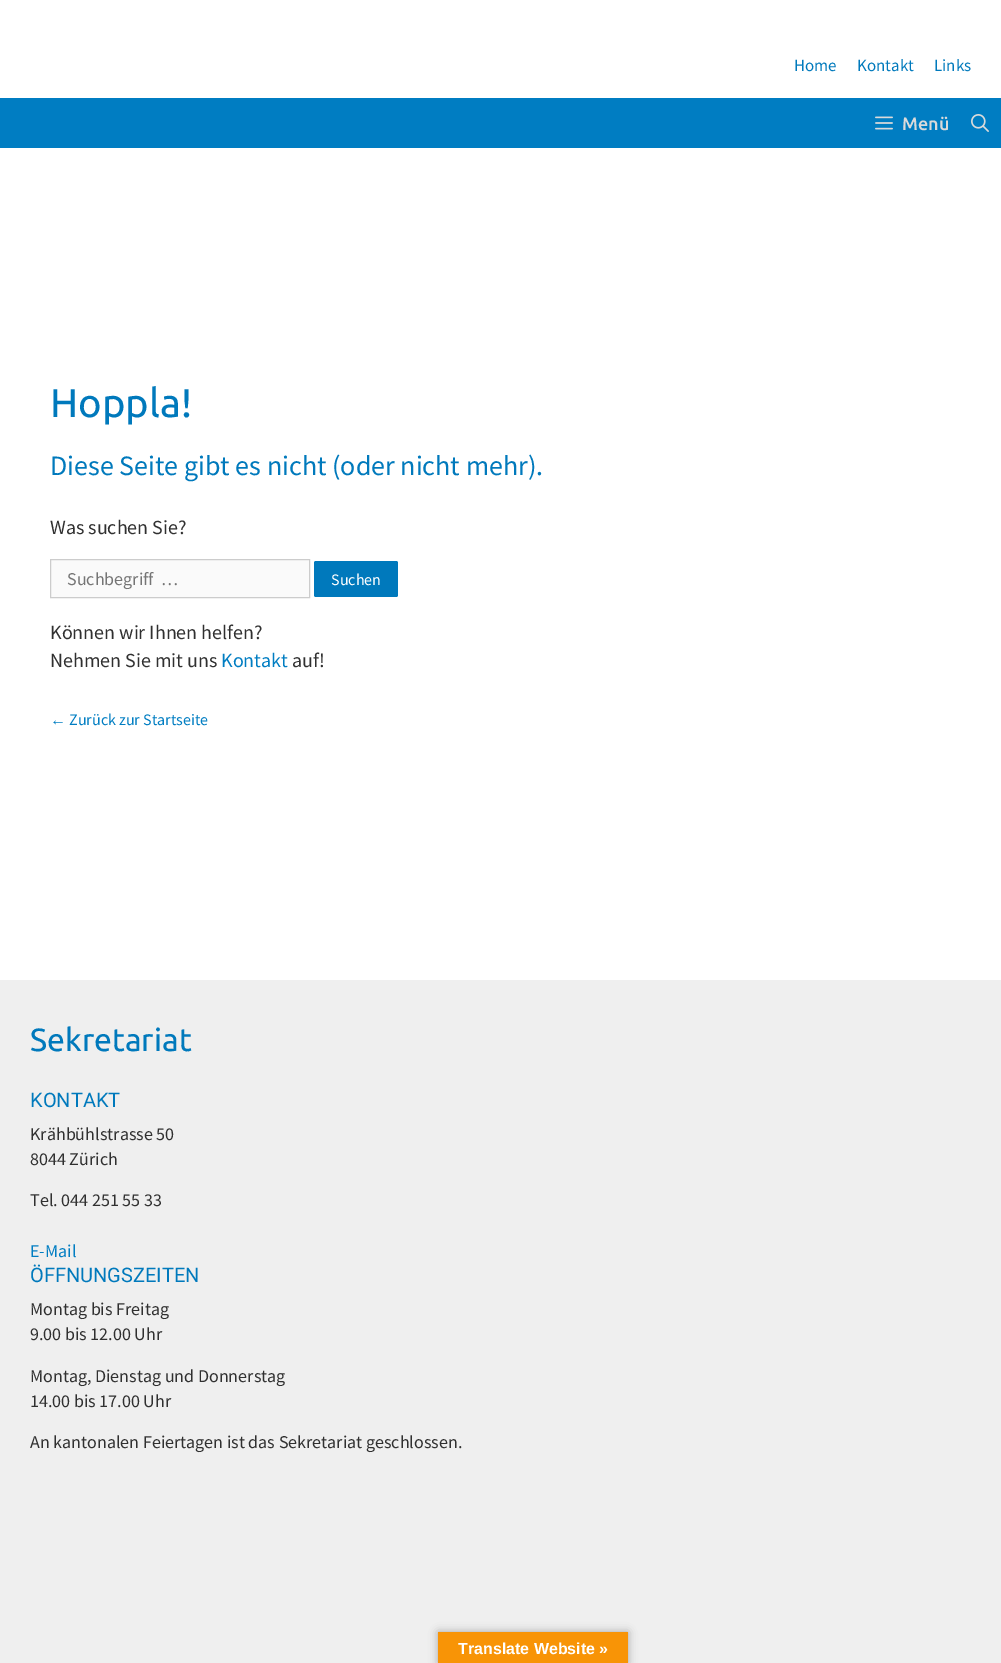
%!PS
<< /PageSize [1001 1663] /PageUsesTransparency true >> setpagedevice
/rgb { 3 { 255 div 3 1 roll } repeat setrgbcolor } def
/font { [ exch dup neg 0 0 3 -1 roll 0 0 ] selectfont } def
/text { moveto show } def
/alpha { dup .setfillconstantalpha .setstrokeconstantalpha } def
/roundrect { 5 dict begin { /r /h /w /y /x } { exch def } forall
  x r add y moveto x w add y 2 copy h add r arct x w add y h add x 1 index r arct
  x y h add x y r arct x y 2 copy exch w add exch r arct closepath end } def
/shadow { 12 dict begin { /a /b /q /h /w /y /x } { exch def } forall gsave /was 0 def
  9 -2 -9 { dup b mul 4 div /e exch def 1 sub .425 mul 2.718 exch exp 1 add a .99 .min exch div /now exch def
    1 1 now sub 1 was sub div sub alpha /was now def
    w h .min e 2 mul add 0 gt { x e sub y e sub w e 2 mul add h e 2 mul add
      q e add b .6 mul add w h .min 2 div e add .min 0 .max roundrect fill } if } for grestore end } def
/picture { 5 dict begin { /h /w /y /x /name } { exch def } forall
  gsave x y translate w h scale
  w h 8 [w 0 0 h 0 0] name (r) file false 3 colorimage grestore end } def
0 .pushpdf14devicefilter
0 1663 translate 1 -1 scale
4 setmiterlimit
255 255 255 rgb
0 0 1001 1663 rectfill
0 125 194 rgb
0 98 1001 50 rectfill
(img_01.rgb) 875 116 18 14 picture
(img_02.rgb) 971 114 18 18 picture
250 250 250 rgb
50.5 559.5 moveto 259 0 rlineto 0 38 rlineto -259 0 rlineto closepath gsave fill grestore
204 204 204 rgb
stroke
0 121 188 rgb
314 561 84 36 2 roundrect fill
239 239 239 rgb
0 980 1001 683 rectfill
0 0 0 rgb
438 1632 190 31 0 4.5 0.3 shadow
248 148 6 rgb
438 1632 190 31 rectfill
/SourceSansPro-Regular 17 font
0 121 188 rgb
(Home) 794 71 text
(Kontakt) 857 71 text
(Links) 934 71 text
/Ubuntu-Medium 18 font
218 218 218 rgb
(Menü) 902 130 text
/Ubuntu-Regular 40 font
0 121 188 rgb
(Hoppla!) 50 417 text
/SourceSansPro-Regular 28 font
(Diese Seite gibt es nicht \(oder nicht mehr\).) 50 475 text
/SourceSansPro-Regular 20 font
48 48 48 rgb
(Was suchen Sie?) 50 534 text
/SourceSansPro-Regular 18 font
117 117 117 rgb
(Suchbegriff  …) 67 585 text
/SourceSansPro-Regular 16 font
255 255 255 rgb
(Suchen) 331 585 text
/SourceSansPro-Regular 20 font
48 48 48 rgb
(Können wir Ihnen helfen?) 50 639 text
(Nehmen Sie mit uns) 50 667 text
0 125 194 rgb
(Kontakt) 221 667 text
48 48 48 rgb
(auf!) 292 667 text
/LiberationSans-Regular 16 font
0 125 194 rgb
(←) 50 725 text
/SourceSansPro-Regular 16 font
(Zurück zur Startseite) 69 725 text
/Ubuntu-Regular 32 font
0 121 188 rgb
(Sekretariat) 30 1051 text
/Roboto-Regular 20 font
(KONTAKT) 30 1107 text
/SourceSansPro-Regular 18 font
48 48 48 rgb
(Krähbühlstrasse 50) 30 1140 text
(8044 Zürich) 30 1165 text
(Tel. 044 251 55 33) 30 1206 text
0 125 194 rgb
(E-Mail) 30 1257 text
/Roboto-Regular 20 font
0 121 188 rgb
(ÖFFNUNGSZEITEN) 30 1282 text
/SourceSansPro-Regular 18 font
48 48 48 rgb
(Montag bis Freitag) 30 1315 text
(9.00 bis 12.00 Uhr) 30 1340 text
(Montag, Dienstag und Donnerstag) 30 1382 text
(14.00 bis 17.00 Uhr) 30 1407 text
(An kantonalen Feiertagen ist das Sekretariat geschlossen.) 30 1448 text
/LiberationSans-Bold 16 font
255 255 255 rgb
(Translate Website ») 458 1654 text
.poppdf14devicefilter showpage
